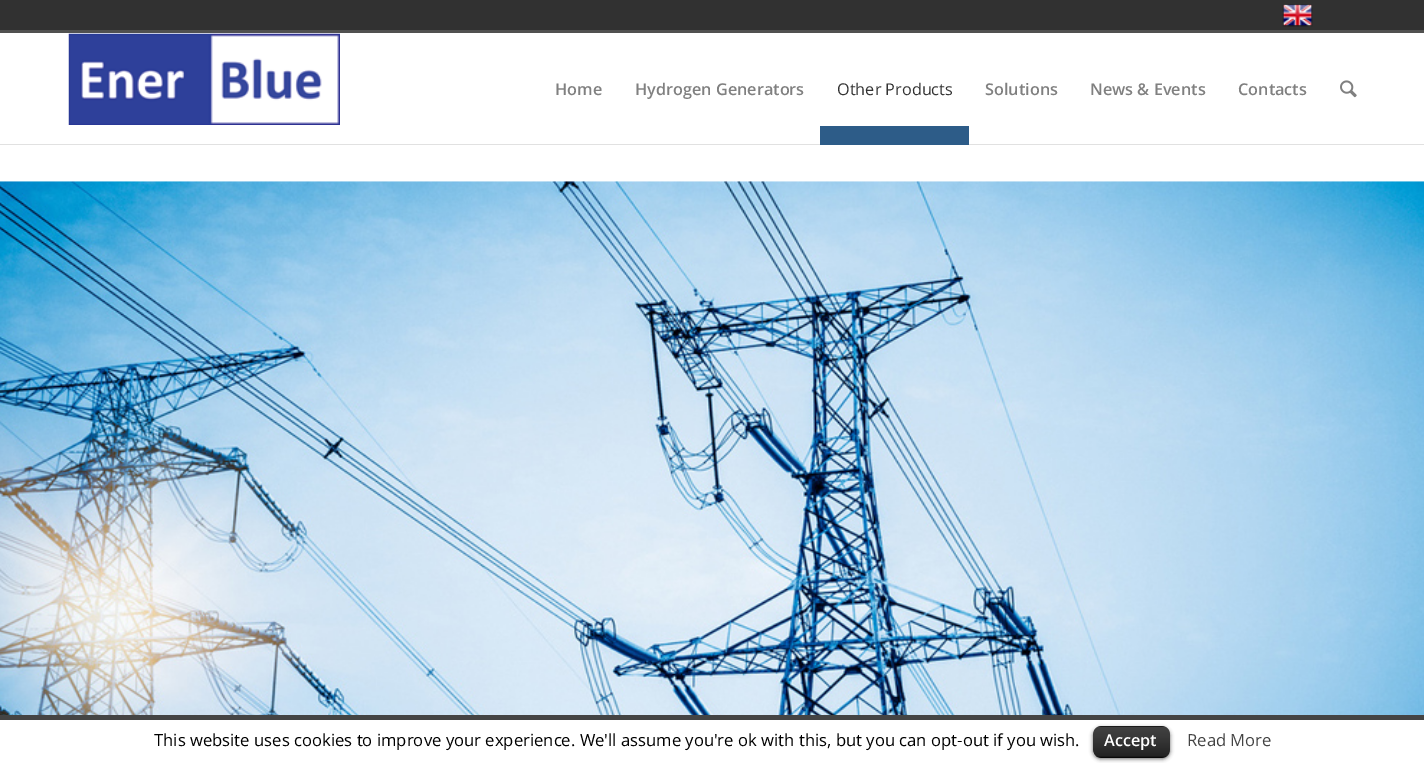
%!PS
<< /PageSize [1424 763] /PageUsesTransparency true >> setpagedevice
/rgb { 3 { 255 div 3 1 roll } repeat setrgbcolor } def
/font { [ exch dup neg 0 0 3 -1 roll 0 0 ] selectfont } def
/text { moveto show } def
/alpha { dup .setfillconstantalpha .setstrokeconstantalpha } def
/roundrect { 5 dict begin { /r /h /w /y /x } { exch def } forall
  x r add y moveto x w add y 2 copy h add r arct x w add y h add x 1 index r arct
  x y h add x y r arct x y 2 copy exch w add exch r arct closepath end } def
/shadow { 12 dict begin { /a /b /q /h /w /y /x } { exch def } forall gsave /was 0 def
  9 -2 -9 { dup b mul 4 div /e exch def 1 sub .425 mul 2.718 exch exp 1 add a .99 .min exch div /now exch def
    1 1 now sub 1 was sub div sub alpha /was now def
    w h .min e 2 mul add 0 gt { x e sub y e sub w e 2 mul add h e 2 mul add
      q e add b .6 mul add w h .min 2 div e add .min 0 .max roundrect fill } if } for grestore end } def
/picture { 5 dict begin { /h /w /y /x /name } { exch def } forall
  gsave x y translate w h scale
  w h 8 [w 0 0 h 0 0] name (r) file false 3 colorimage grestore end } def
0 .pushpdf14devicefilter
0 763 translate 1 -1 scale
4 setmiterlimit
255 255 255 rgb
0 0 1424 763 rectfill
49 49 49 rgb
0 0 1424 30 rectfill
81 81 80 rgb
0 30 1424 3 rectfill
(img_01.rgb) 1282 4 31 23 picture
225 225 225 rgb
0 144 1424 1 rectfill
(img_02.rgb) 68 33 272 92 picture
45 92 136 rgb
820 126 149 19 rectfill
(img_03.rgb) 1340 80 17 18 picture
(img_04.rgb) 0 181 1424 534 picture
68 68 68 rgb
0 715 1424 5 rectfill
0 0 0 rgb
1093 728 77 31 8 2 0.6 shadow
1093 726 77 32 8 roundrect fill
(img_05.rgb) 1093 726 77 32 picture
0.25 alpha
1096 756 70 1 rectfill
/OpenSans-SemiBold 16.25 font
1 alpha
128 128 128 rgb
(Home) 555 95 text
(Hydrogen Generators) 635 95 text
/OpenSans-Regular 16.25 font
51 51 51 rgb
(Other Products) 837 95 text
/OpenSans-SemiBold 16.25 font
128 128 128 rgb
(Solutions) 985 95 text
(News & Events) 1090 95 text
(Contacts) 1238 95 text
/OpenSans-Regular 16.67 font
0 0 0 rgb
(This website uses cookies to improve your experience. We'll assume you're ok with this, but you can opt-out if you wish.) 154 746 text
/OpenSans-SemiBold 16.25 font
255 255 255 rgb
(Accept) 1104 746 text
/OpenSans-Regular 16.67 font
68 68 68 rgb
(Read More) 1187 746 text
.poppdf14devicefilter showpage
